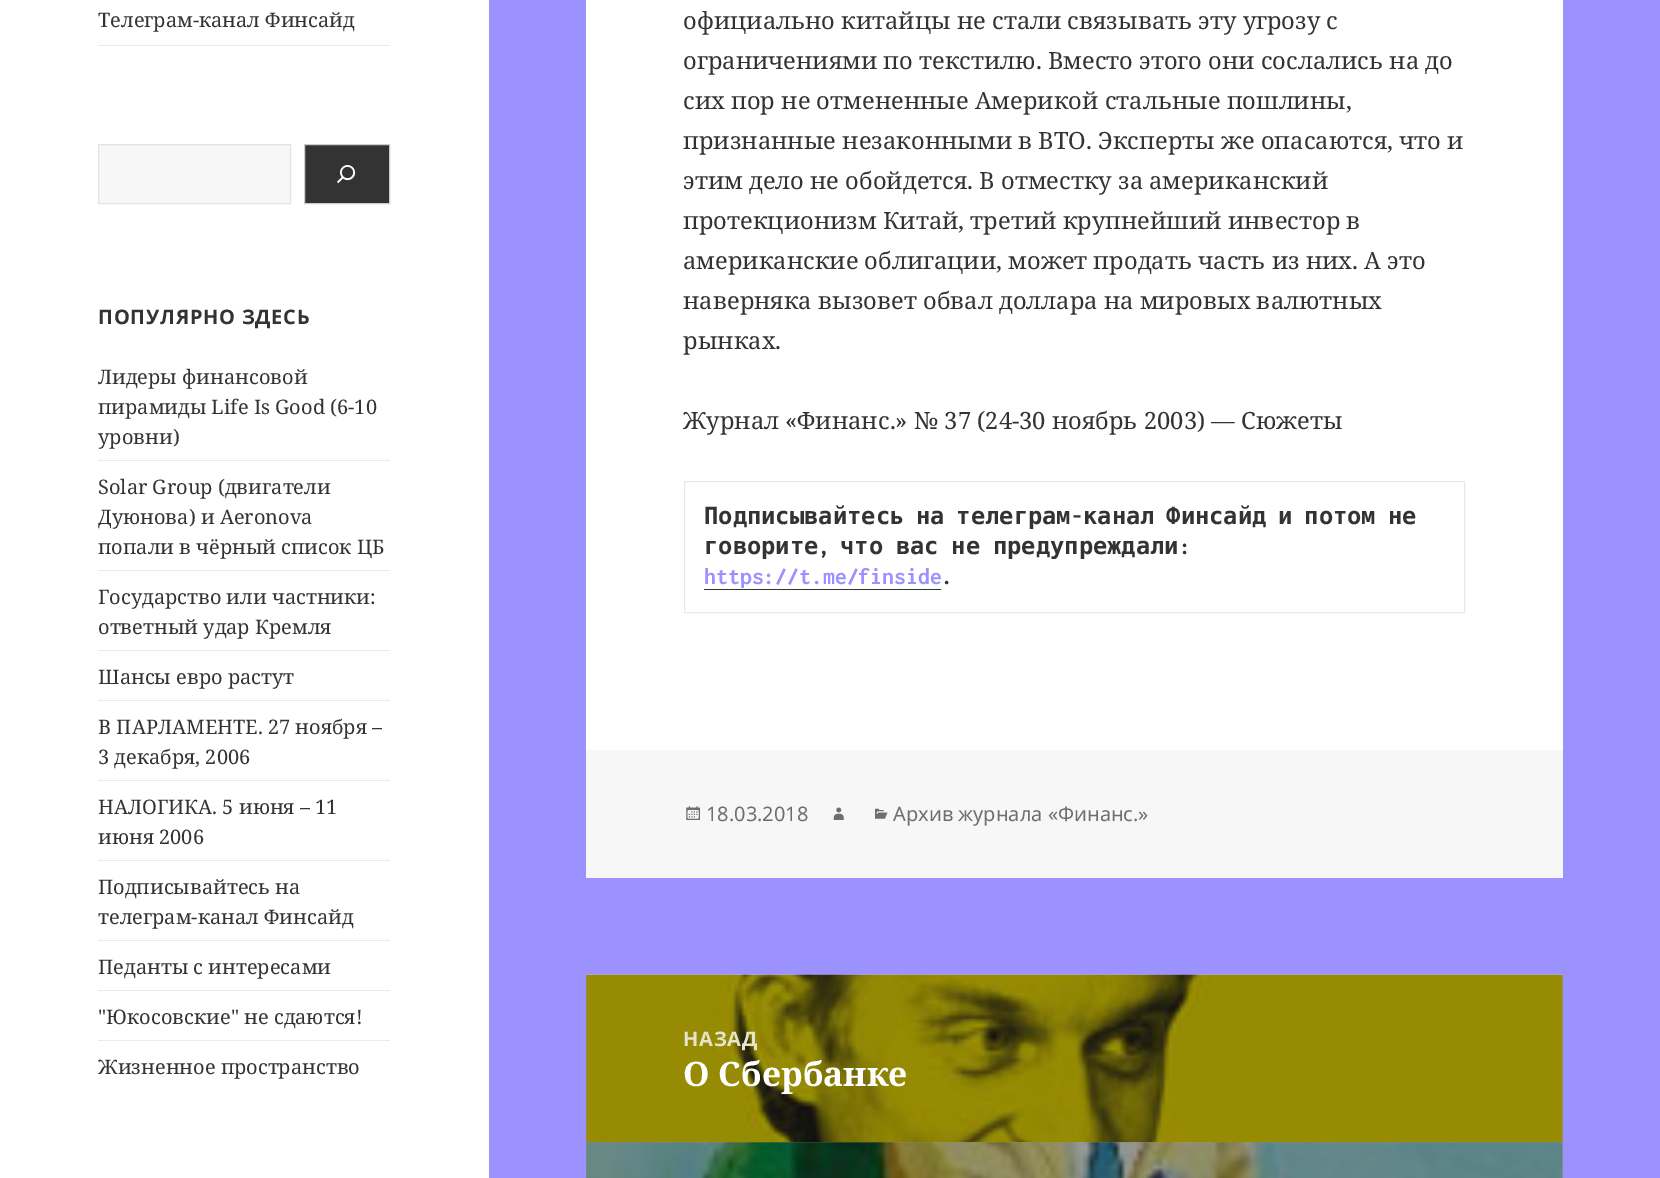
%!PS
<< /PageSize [1660 1178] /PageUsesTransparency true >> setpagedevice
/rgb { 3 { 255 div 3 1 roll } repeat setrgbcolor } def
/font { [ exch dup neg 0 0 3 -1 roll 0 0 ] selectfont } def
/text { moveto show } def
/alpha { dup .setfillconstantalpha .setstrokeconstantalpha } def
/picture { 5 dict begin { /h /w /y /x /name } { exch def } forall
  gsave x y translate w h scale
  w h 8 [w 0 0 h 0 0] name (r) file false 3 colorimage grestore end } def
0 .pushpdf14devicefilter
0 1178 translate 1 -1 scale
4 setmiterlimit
156 146 255 rgb
0 0 1660 1178 rectfill
255 255 255 rgb
0 0 489 1178 rectfill
235 235 235 rgb
98 45 292 1 rectfill
247 247 247 rgb
98.5 144.5 moveto 192 0 rlineto 0 59 rlineto -192 0 rlineto closepath gsave fill grestore
227 227 227 rgb
stroke
51 51 51 rgb
304.5 144.5 moveto 85 0 rlineto 0 59 rlineto -85 0 rlineto closepath gsave fill grestore
204 204 204 rgb
stroke
(img_01.rgb) 337 165 19 19 picture
235 235 235 rgb
98 460 292 1 rectfill
98 570 292 1 rectfill
98 650 292 1 rectfill
98 700 292 1 rectfill
98 780 292 1 rectfill
98 860 292 1 rectfill
98 940 292 1 rectfill
98 990 292 1 rectfill
98 1040 292 1 rectfill
255 255 255 rgb
586 0 977 750 rectfill
233 233 233 rgb
684.5 481.5 780 131 rectstroke
51 51 51 rgb
704 589 237 1 rectfill
247 247 247 rgb
586 750 977 128 rectfill
(img_02.rgb) 686 806 14 14 picture
(img_03.rgb) 833 807 11 13 picture
(img_04.rgb) 875 808 13 11 picture
255 255 255 rgb
586 975 977 203 rectfill
(img_05.rgb) 586 974 977 169 picture
(img_06.rgb) 586 1142 977 36 picture
0.4 alpha
0 0 0 rgb
586 975 977 168 rectfill
586 1143 977 35 rectfill
/NotoSerif-Regular 20 font
1 alpha
51 51 51 rgb
(Телеграм-канал Финсайд) 98 27 text
/NotoSans-Bold 20 font
98 324 moveto 0.75 0 (ПОПУЛЯРНО ЗДЕСЬ) ashow
/NotoSerif-Regular 20 font
(Лидеры финансовой) 98 384 text
(пирамиды Life Is Good \(6-10) 98 414 text
(уровни\)) 98 444 text
(Solar Group \(двигатели) 98 494 text
(Дуюнова\) и Aeronova) 98 524 text
(попали в чёрный список ЦБ) 98 554 text
(Государство или частники:) 98 604 text
(ответный удар Кремля) 98 634 text
(Шансы евро растут) 98 684 text
(В ПАРЛАМЕНТЕ. 27 ноября –) 98 734 text
(3 декабря, 2006) 98 764 text
(НАЛОГИКА. 5 июня – 11) 98 814 text
(июня 2006) 98 844 text
(Подписывайтесь на) 98 894 text
(телеграм-канал Финсайд) 98 924 text
(Педанты с интересами) 98 974 text
("Юкосовские" не сдаются!) 98 1024 text
(Жизненное пространство) 98 1074 text
/NotoSerif-Regular 23.75 font
(официально китайцы не стали связывать эту угрозу с) 683 29 text
(ограничениями по текстилю. Вместо этого они сослались на до) 683 69 text
(сих пор не отмененные Америкой стальные пошлины,) 683 109 text
(признанные незаконными в ВТО. Эксперты же опасаются, что и) 683 149 text
(этим дело не обойдется. В отместку за американский) 683 189 text
(протекционизм Китай, третий крупнейший инвестор в) 683 229 text
(американские облигации, может продать часть из них. А это) 683 269 text
(наверняка вызовет обвал доллара на мировых валютных) 683 309 text
(рынках.) 683 349 text
(Журнал «Финанс.» № 37 \(24-30 ноябрь 2003\) — Сюжеты) 683 429 text
/DejaVuSansMono-Bold 23.75 font
704 524 moveto -2.5 0 32 (Подписывайтесь на телеграм) widthshow
/Inconsolata-Bold 23.75 font
(-) 1071 524 text
/DejaVuSansMono-Bold 23.75 font
1083 524 moveto -2.5 0 32 (канал Финсайд и потом не) widthshow
(говорите) 704 554 text
/Inconsolata-Bold 23.75 font
(,) 818 554 text
/DejaVuSansMono-Bold 23.75 font
840 554 moveto -1.5 0 32 (что вас не предупреждали) widthshow
/Inconsolata-Bold 23.75 font
(:) 1179 554 text
156 146 255 rgb
(https://t.me/finside) 704 584 text
51 51 51 rgb
(.) 941 584 text
/NotoSans-Regular 20 font
110 110 110 rgb
(18.03.2018) 706 821 text
(Архив журнала «Финанс.») 893 821 text
/NotoSans-Bold 20 font
230 228 205 rgb
683 1046 moveto 0.75 0 (НАЗАД) ashow
/NotoSerif-Bold 33.75 font
255 255 255 rgb
(О Сбербанке) 683 1086 text
.poppdf14devicefilter showpage
